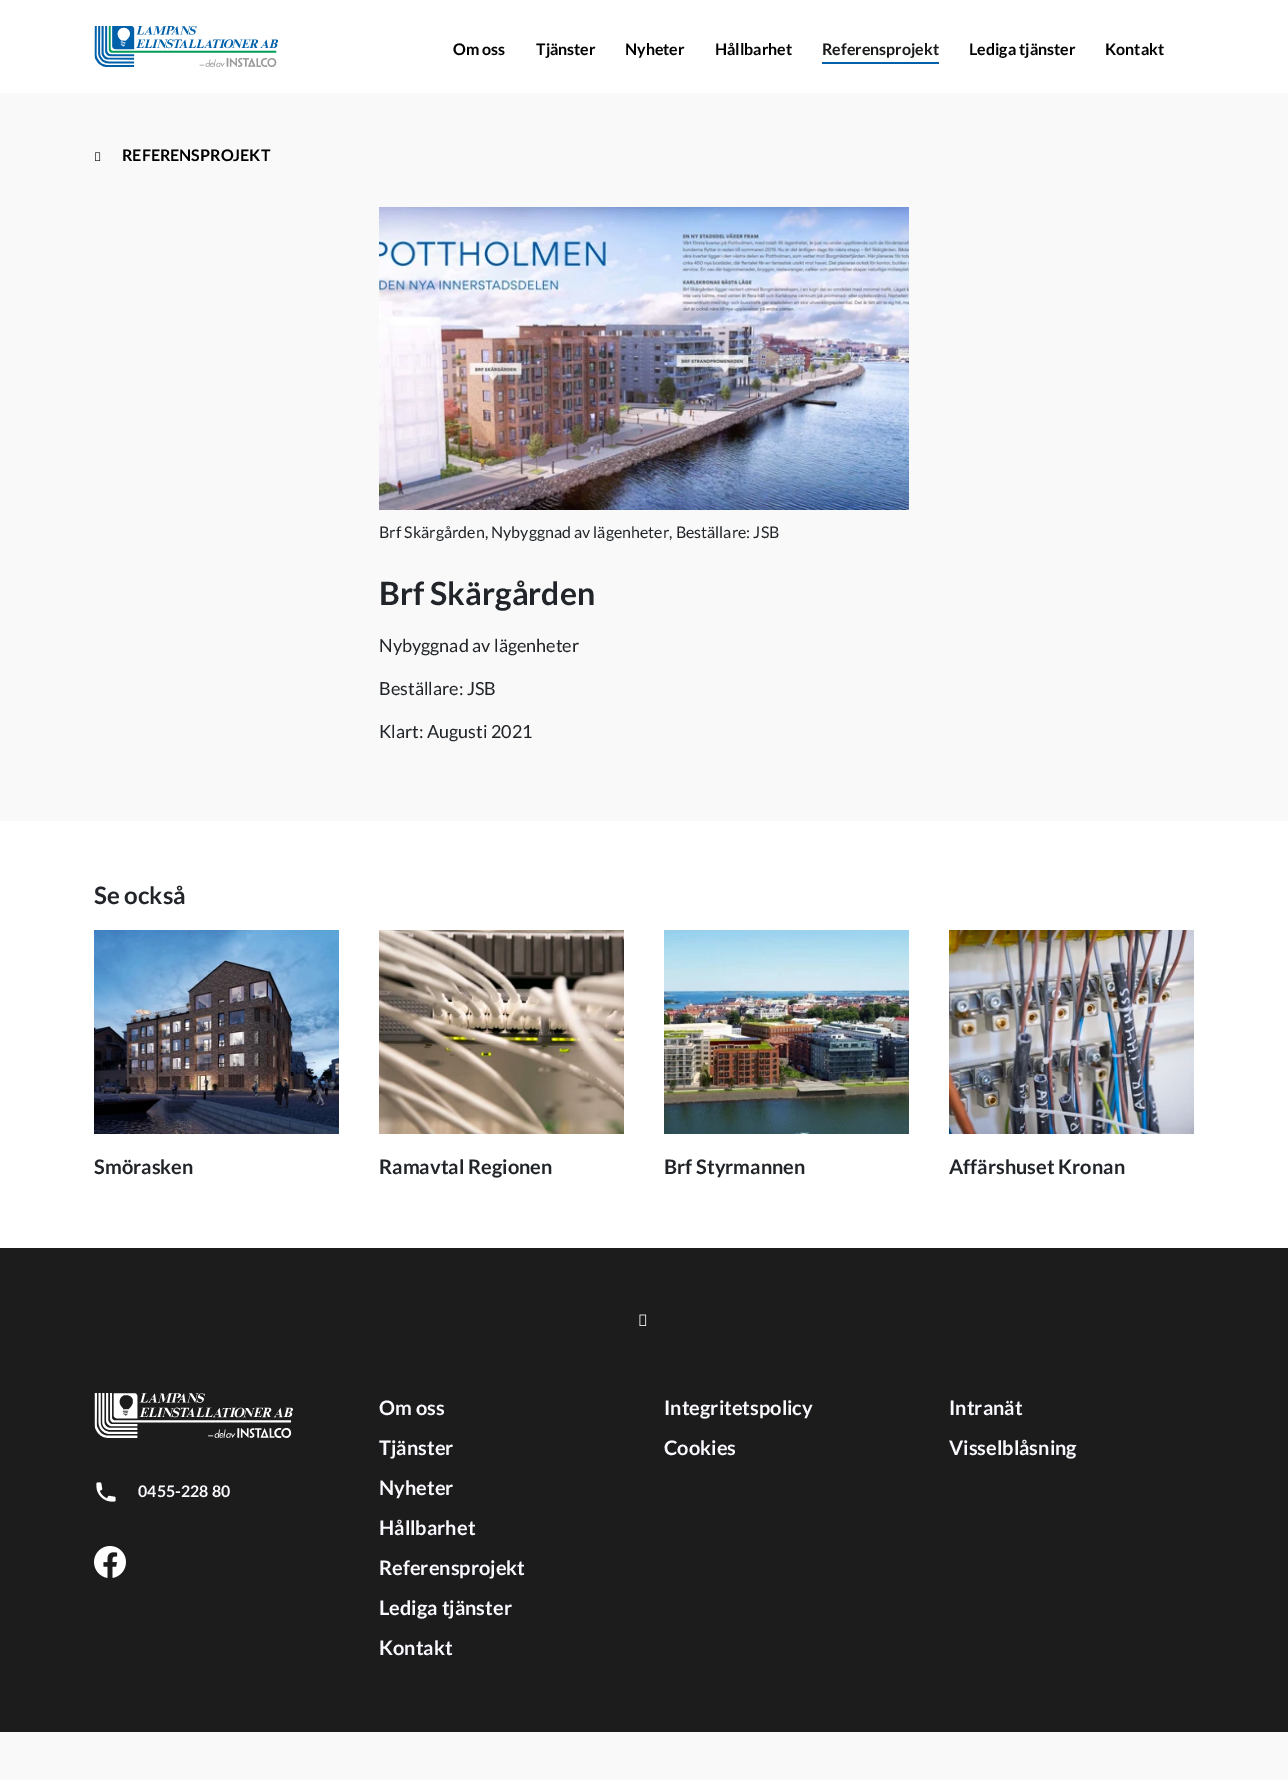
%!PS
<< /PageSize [1288 1780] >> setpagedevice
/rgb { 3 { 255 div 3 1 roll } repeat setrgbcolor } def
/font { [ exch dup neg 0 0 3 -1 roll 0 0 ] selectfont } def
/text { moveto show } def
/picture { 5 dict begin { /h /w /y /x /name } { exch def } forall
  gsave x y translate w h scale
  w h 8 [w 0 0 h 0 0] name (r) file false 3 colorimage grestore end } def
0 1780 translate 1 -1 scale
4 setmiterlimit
249 249 249 rgb
0 0 1288 1780 rectfill
255 255 255 rgb
0 0 1288 93 rectfill
(img_01.rgb) 94 26 185 41 picture
0 96 169 rgb
822 62 117 2 rectfill
(img_02.rgb) 95 152 6 9 picture
(img_03.rgb) 379 207 530 303 picture
255 255 255 rgb
0 821 1288 427 rectfill
(img_04.rgb) 94 930 245 204 picture
(img_05.rgb) 379 930 245 204 picture
(img_06.rgb) 664 930 245 204 picture
(img_07.rgb) 949 930 245 204 picture
28 28 28 rgb
0 1248 1288 484 rectfill
(img_08.rgb) 639 1314 8 12 picture
(img_09.rgb) 94 1393 199 45 picture
(img_10.rgb) 96 1482 20 20 picture
(img_11.rgb) 94 1546 32 32 picture
/Lato-Bold 16 font
0 0 0 rgb
(Om oss) 453 55 text
(Tjänster) 536 55 text
(Nyheter) 625 55 text
(Hållbarhet) 715 55 text
26 26 26 rgb
(Referensprojekt) 822 55 text
0 0 0 rgb
(Lediga tjänster) 969 55 text
(Kontakt) 1105 55 text
(REFERENSPROJEKT) 122 161 text
/Lato-Regular 16 font
33 37 41 rgb
(Brf Skärgården, Nybyggnad av lägenheter, Beställare: JSB) 379 538 text
/Lato-Bold 32 font
(Brf Skärgården) 379 605 text
/Lato-Regular 18 font
(Nybyggnad av lägenheter) 379 652 text
(Beställare: JSB) 379 695 text
(Klart: Augusti 2021) 379 738 text
/Lato-Bold 24 font
(Se också) 94 904 text
/Lato-Bold 20 font
(Smörasken) 94 1174 text
(Ramavtal Regionen) 379 1174 text
(Brf Styrmannen) 664 1174 text
(Affärshuset Kronan) 949 1174 text
250 249 255 rgb
(Om oss) 379 1415 text
(Tjänster) 379 1455 text
(Nyheter) 379 1495 text
(Hållbarhet) 379 1535 text
(Referensprojekt) 379 1575 text
(Lediga tjänster) 379 1615 text
(Kontakt) 379 1655 text
(Integritetspolicy) 664 1415 text
(Cookies) 664 1455 text
(Intranät) 949 1415 text
(Visselblåsning) 949 1455 text
/Lato-Bold 16 font
(0455-228 80) 138 1497 text
showpage
